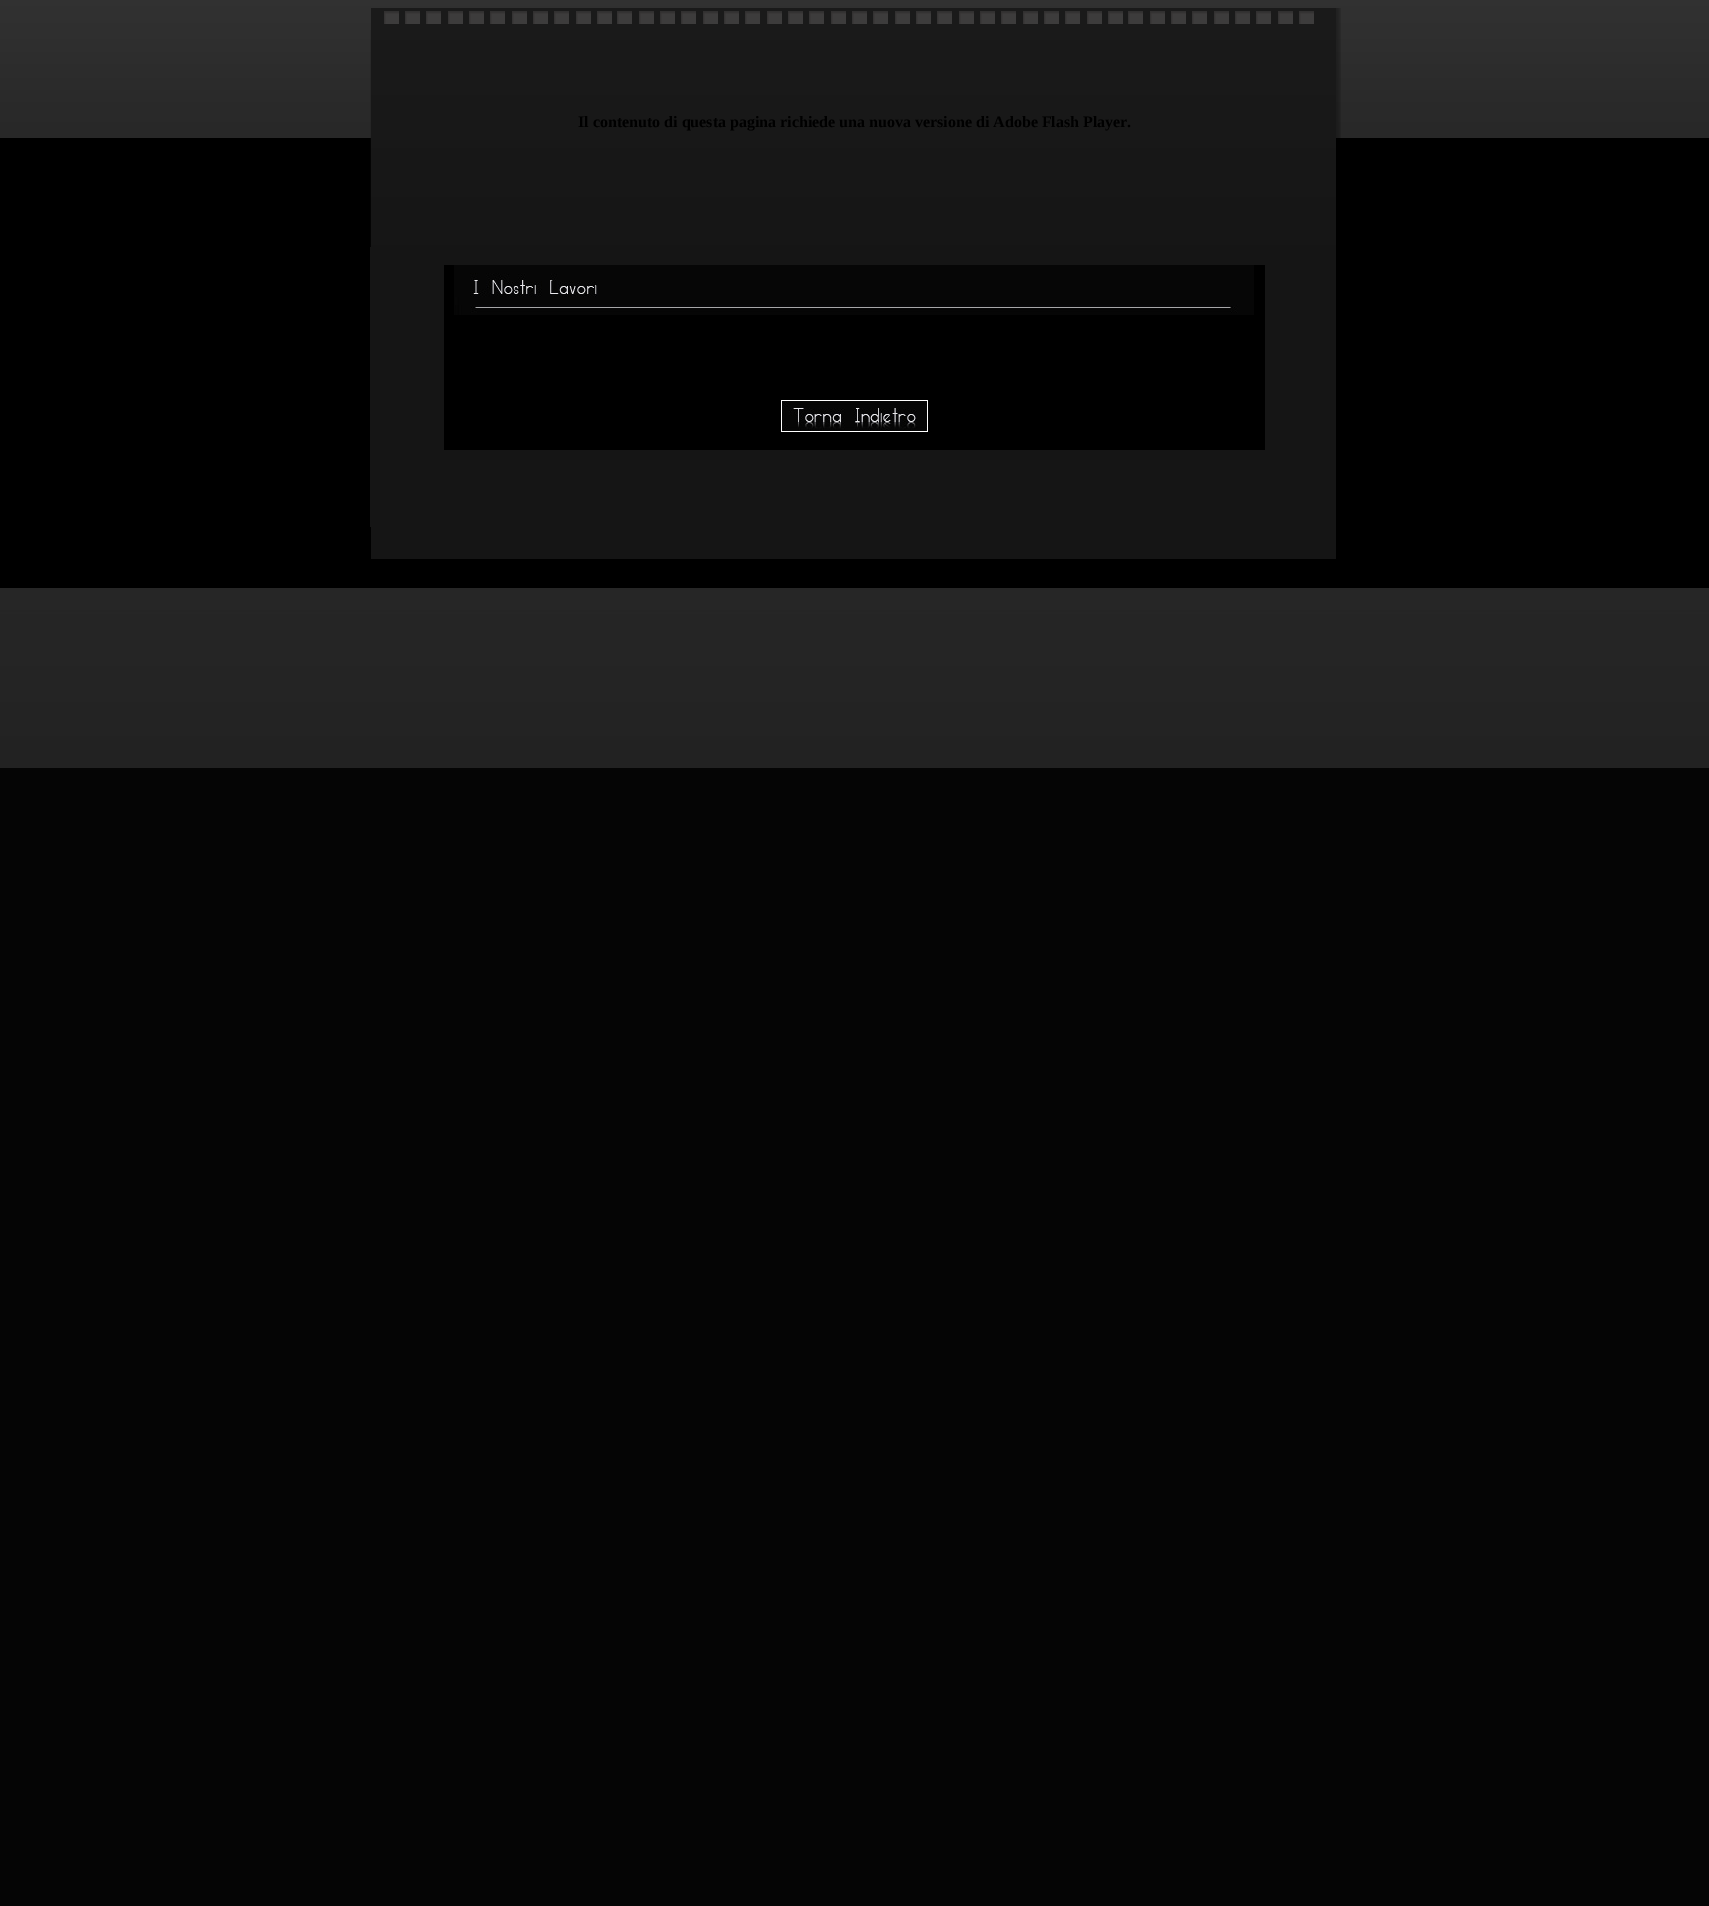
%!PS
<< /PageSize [1709 1906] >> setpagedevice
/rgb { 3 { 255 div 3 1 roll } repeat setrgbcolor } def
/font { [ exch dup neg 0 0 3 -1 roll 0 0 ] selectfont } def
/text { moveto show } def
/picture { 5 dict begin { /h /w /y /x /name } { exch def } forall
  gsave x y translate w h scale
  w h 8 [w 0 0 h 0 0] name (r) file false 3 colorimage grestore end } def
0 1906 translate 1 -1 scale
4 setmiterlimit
5 5 5 rgb
0 0 1709 1906 rectfill
(img_01.rgb) 0 0 1709 768 picture
(img_02.rgb) 371 8 970 22 picture
(img_03.rgb) 370 30 971 217 picture
21 21 21 rgb
370 247 966 280 rectfill
0 0 0 rgb
444 265 821 185 rectfill
(img_04.rgb) 454 265 800 50 picture
(img_05.rgb) 781 400 147 32 picture
21 21 21 rgb
371 527 965 32 rectfill
/LiberationSerif-Bold 16 font
0 0 0 rgb
(Il contenuto di questa pagina richiede una nuova versione di Adobe Flash Player.) 578 127 text
showpage
